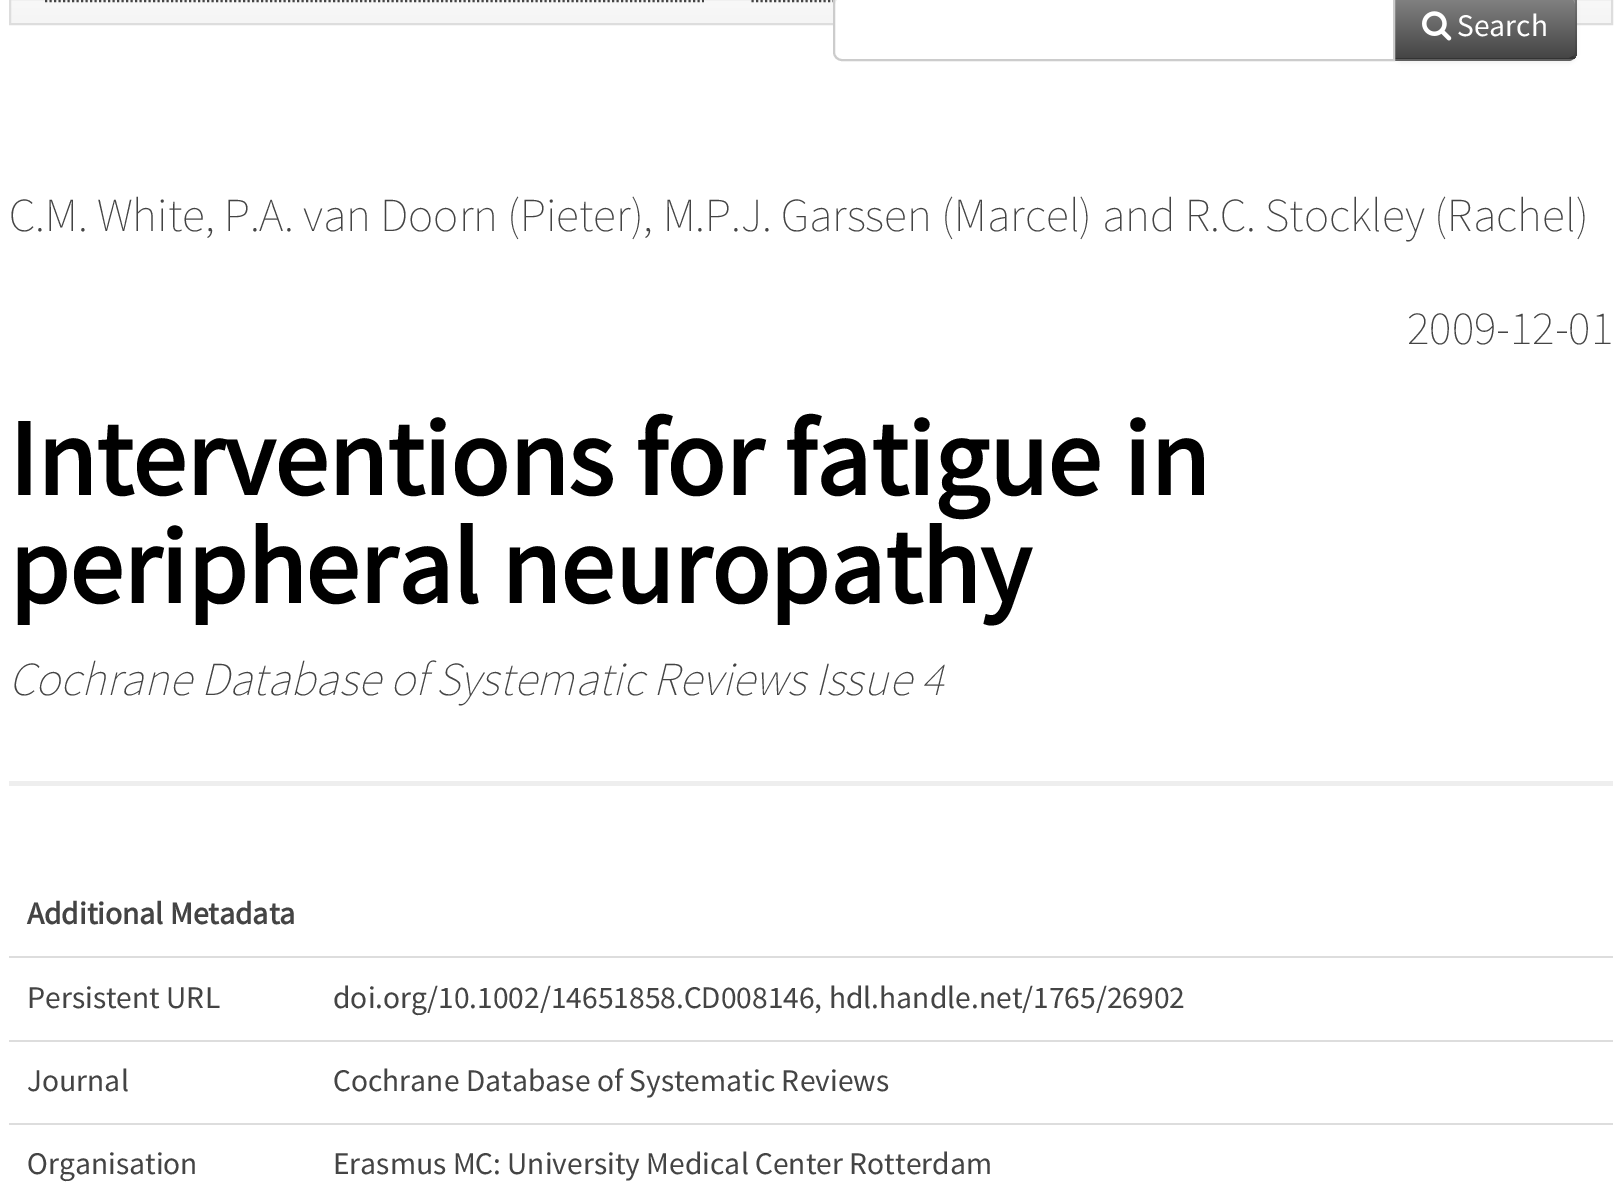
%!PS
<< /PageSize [1622 1195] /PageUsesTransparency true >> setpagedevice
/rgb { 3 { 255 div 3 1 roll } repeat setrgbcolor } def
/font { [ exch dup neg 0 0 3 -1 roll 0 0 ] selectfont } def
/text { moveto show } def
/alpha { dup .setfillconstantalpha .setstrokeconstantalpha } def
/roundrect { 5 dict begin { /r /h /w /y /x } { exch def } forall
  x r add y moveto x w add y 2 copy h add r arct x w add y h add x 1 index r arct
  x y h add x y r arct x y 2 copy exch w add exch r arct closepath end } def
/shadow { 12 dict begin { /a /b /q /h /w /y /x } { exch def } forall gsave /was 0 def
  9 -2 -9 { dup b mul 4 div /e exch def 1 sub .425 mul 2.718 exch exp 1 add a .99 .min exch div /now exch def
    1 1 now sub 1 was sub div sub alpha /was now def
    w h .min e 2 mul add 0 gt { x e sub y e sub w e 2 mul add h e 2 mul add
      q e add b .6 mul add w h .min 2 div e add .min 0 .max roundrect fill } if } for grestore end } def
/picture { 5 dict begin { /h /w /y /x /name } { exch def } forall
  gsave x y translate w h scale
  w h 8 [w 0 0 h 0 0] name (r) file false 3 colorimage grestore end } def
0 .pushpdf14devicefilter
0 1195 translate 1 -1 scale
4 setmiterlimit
255 255 255 rgb
0 0 1622 1195 rectfill
gsave 11 0 moveto 1600 0 rlineto 0 23 rlineto -1600 0 rlineto closepath clip newpath
<< /ShadingType 2 /ColorSpace /DeviceRGB /Coords [811 -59 811 23] /Extend [true true] /Function << /FunctionType 2 /Domain [0 1] /C0 [1 1 1] /C1 [0.961 0.961 0.961] /N 1 >> >> shfill grestore
221 221 221 rgb
2 setlinewidth
10 -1 1602 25 rectstroke
68 68 68 rgb
2.2 setlinewidth
[2.25 2.25] 0 setdash
45 1 moveto 659 0 rlineto stroke
751.5 1 moveto 555.5 0 rlineto stroke
0 0 0 rgb
1393 -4 184 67 9 2 0.05 shadow
127 127 127 rgb
1393 -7 moveto 175 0 rlineto 5 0 9 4 9 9 rcurveto 0 50 rlineto 0 5 -4 9 -9 9 rcurveto -175 0 rlineto closepath fill
gsave
1393 -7 moveto 175 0 rlineto 5 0 9 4 9 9 rcurveto 0 50 rlineto 0 5 -4 9 -9 9 rcurveto -175 0 rlineto closepath clip newpath
gsave 1395 0 moveto 182 0 rlineto 0 59 rlineto -182 0 rlineto closepath clip newpath
<< /ShadingType 2 /ColorSpace /DeviceRGB /Coords [1485 -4.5 1485 59] /Extend [true true] /Function << /FunctionType 2 /Domain [0 1] /C0 [0.518 0.518 0.518] /C1 [0.267 0.267 0.267] /N 1 >> >> shfill grestore
grestore
152 152 152 rgb
1395 -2 moveto 173 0 rlineto 4 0 7 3 7 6 rcurveto 0 -1 rlineto 0 -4 -3 -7 -7 -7 rcurveto -173 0 rlineto closepath fill
0.1 alpha
0 0 0 rgb
1575 -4 moveto 1 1 2 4 2 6 rcurveto 0 50 rlineto 0 2 -1 5 -2 6 rcurveto -2 -2 rlineto 1 -1 2 -2 2 -4 rcurveto 0 -50 rlineto 0 -2 -1 -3 -2 -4 rcurveto closepath fill
0.25 alpha
1393 61 moveto 3 -3 rlineto 173 0 rlineto 4 -2 rlineto 2 2 rlineto -2 1 -3 2 -5 3 rcurveto closepath fill
0.1 alpha
1395 -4 moveto 0 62 rlineto 1 0 rlineto -3 2 rlineto 0 -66 rlineto 3 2 rlineto closepath fill
1 alpha
255 255 255 rgb
842 -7 moveto 553 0 rlineto 0 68 rlineto -553 0 rlineto -5 0 -9 -4 -9 -9 rcurveto 0 -50 rlineto 0 -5 4 -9 9 -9 rcurveto closepath fill
236 236 236 rgb
842 -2 moveto 551 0 rlineto 0 -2 rlineto -551 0 rlineto -5 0 -7 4 -7 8 rcurveto 0 -3 3 -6 7 -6 rcurveto closepath fill
204 204 204 rgb
2 setlinewidth
[] 0 setdash
842 -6 moveto 552 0 rlineto 0 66 rlineto -552 0 rlineto -4.5 0 -8 -3.5 -8 -8 rcurveto 0 -50 rlineto 0 -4.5 3.5 -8 8 -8 rcurveto closepath stroke
(img_01.rgb) 1422 11 30 30 picture
238 238 238 rgb
9 781 1604 5 rectfill
221 221 221 rgb
9 956 1604 2 rectfill
9 1040 1604 2 rectfill
9 1123 1604 2 rectfill
/SourceSansPro-Regular 31.5 font
255 255 255 rgb
(Search) 1457 36 text
/SourceSansPro-ExtraLight 47.25 font
68 68 68 rgb
(C.M. White, P.A. van Doorn \(Pieter\), M.P.J. Garssen \(Marcel\) and R.C. Stockley \(Rachel\)) 9 231 text
(2009-12-01) 1407 344 text
/SourceSansPro-Bold 108 font
0 0 0 rgb
(Interventions for fatigue in) 9 495 text
(peripheral neuropathy) 9 603 text
/SourceSansPro-ExtraLightItalic 47.25 font
68 68 68 rgb
(Cochrane Database of Systematic Reviews Issue 4) 9 695 text
/SourceSansPro-Bold 31.5 font
(Additional Metadata) 27 924 text
/SourceSansPro-Regular 31.5 font
(Persistent URL) 27 1008 text
(doi.org/10.1002/14651858.CD008146, hdl.handle.net/1765/26902) 333 1008 text
(Journal) 27 1091 text
(Cochrane Database of Systematic Reviews) 333 1091 text
(Organisation) 27 1174 text
(Erasmus MC: University Medical Center Rotterdam) 333 1174 text
.poppdf14devicefilter showpage
